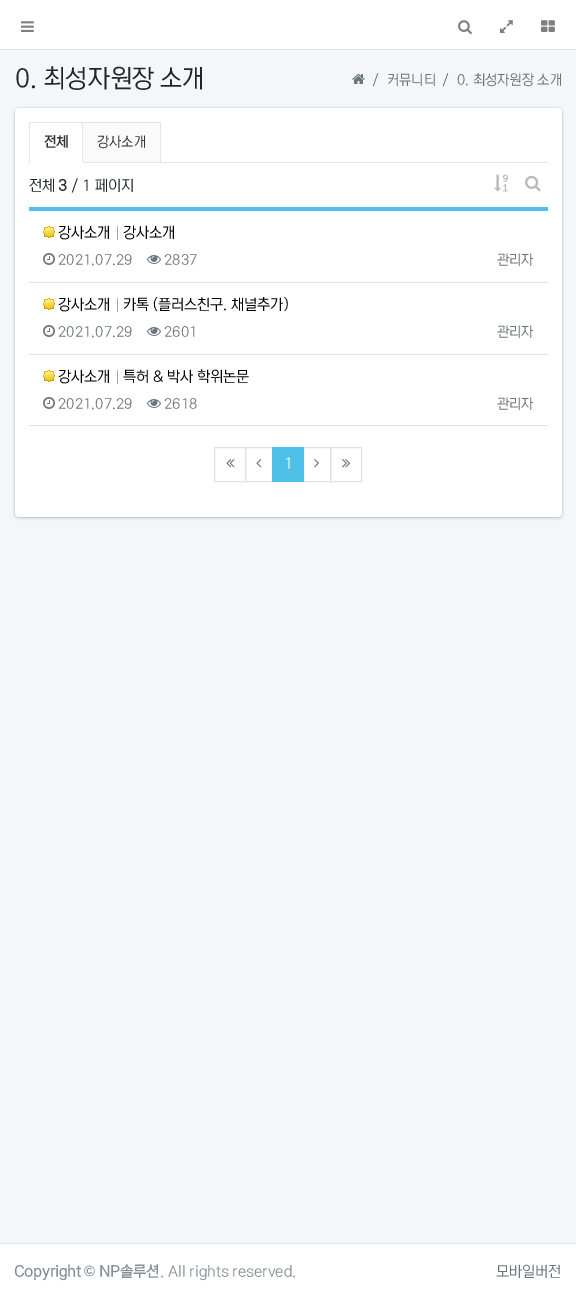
%!PS
<< /PageSize [576 1299] /PageUsesTransparency true >> setpagedevice
/rgb { 3 { 255 div 3 1 roll } repeat setrgbcolor } def
/font { [ exch dup neg 0 0 3 -1 roll 0 0 ] selectfont } def
/text { moveto show } def
/alpha { dup .setfillconstantalpha .setstrokeconstantalpha } def
/roundrect { 5 dict begin { /r /h /w /y /x } { exch def } forall
  x r add y moveto x w add y 2 copy h add r arct x w add y h add x 1 index r arct
  x y h add x y r arct x y 2 copy exch w add exch r arct closepath end } def
/shadow { 12 dict begin { /a /b /q /h /w /y /x } { exch def } forall gsave /was 0 def
  9 -2 -9 { dup b mul 4 div /e exch def 1 sub .425 mul 2.718 exch exp 1 add a .99 .min exch div /now exch def
    1 1 now sub 1 was sub div sub alpha /was now def
    w h .min e 2 mul add 0 gt { x e sub y e sub w e 2 mul add h e 2 mul add
      q e add b .6 mul add w h .min 2 div e add .min 0 .max roundrect fill } if } for grestore end } def
/picture { 5 dict begin { /h /w /y /x /name } { exch def } forall
  gsave x y translate w h scale
  w h 8 [w 0 0 h 0 0] name (r) file false 3 colorimage grestore end } def
0 .pushpdf14devicefilter
0 1299 translate 1 -1 scale
4 setmiterlimit
255 255 255 rgb
0 0 576 1299 rectfill
244 246 249 rgb
0 50 576 1193 rectfill
222 226 230 rgb
0 49 576 1 rectfill
(img_01.rgb) 21 21 13 11 picture
(img_02.rgb) 458 20 14 15 picture
(img_03.rgb) 500 20 13 14 picture
(img_04.rgb) 541 20 14 12 picture
(img_05.rgb) 352 74 13 10 picture
0 0 0 rgb
15 109 547 409 4 1.5 0.2 shadow
15 108 547 409 4 0.5 0.12 shadow
255 255 255 rgb
15 108 547 409 4 roundrect fill
229 229 229 rgb
29 122 1 41 rectfill
30 122 131 1 rectfill
29 162 519 1 rectfill
82 122 1 41 rectfill
255 255 255 rgb
30 162 53 1 rectfill
250 250 250 rgb
83 123 77 39 rectfill
229 229 229 rgb
160 122 1 41 rectfill
(img_06.rgb) 494 174 14 18 picture
(img_07.rgb) 525 175 16 17 picture
79 193 233 rgb
29 207 519 4 rectfill
222 226 230 rgb
29 282 519 1 rectfill
(img_08.rgb) 43 226 12 12 picture
170 170 170 rgb
117 226 1 14 rectfill
(img_09.rgb) 43 253 12 12 picture
(img_10.rgb) 147 255 14 9 picture
222 226 230 rgb
29 354 519 1 rectfill
(img_08.rgb) 43 298 12 12 picture
170 170 170 rgb
117 298 1 14 rectfill
(img_09.rgb) 43 325 12 12 picture
(img_10.rgb) 147 327 14 9 picture
222 226 230 rgb
29 425 519 1 rectfill
(img_08.rgb) 43 370 12 12 picture
170 170 170 rgb
117 370 1 14 rectfill
(img_09.rgb) 43 397 12 12 picture
(img_10.rgb) 147 399 14 9 picture
222 226 230 rgb
214.5 447.5 31 34 rectstroke
(img_11.rgb) 226 459 9 9 picture
245.5 447.5 27 34 rectstroke
(img_12.rgb) 256 459 6 9 picture
303.5 447.5 27 34 rectstroke
79 193 233 rgb
272 447 32 35 rectfill
(img_13.rgb) 314 459 5 9 picture
222 226 230 rgb
330.5 447.5 31 34 rectstroke
(img_14.rgb) 342 459 9 9 picture
0 1243 576 1 rectfill
/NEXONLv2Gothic-Regular 25.25 font
33 37 41 rgb
(0. 최성자원장 소개) 15 86 text
/NEXONLv2Gothic-Regular 14 font
108 117 125 rgb
(/) 372 84 text
(커뮤니티) 387 84 text
(/) 442 84 text
(0. 최성자원장 소개) 457 84 text
/NEXONLv2Gothic-Bold 14 font
51 51 51 rgb
(전체) 44 146 text
/NEXONLv2Gothic-Regular 14 font
(강사소개) 97 146 text
/NEXONLv2Gothic-Regular 15 font
33 37 41 rgb
(전체) 29 190 text
/NEXONLv2Gothic-Bold 15 font
(3) 58 190 text
/NEXONLv2Gothic-Regular 15 font
(/ 1 페이지) 71 190 text
0 0 0 rgb
(강사소개) 58 237 text
(강사소개) 123 237 text
/NEXONLv2Gothic-Regular 14 font
108 117 125 rgb
(2021.07.29) 58 264 text
(2837) 164 264 text
(관리자) 497 264 text
/NEXONLv2Gothic-Regular 15 font
0 0 0 rgb
(강사소개) 58 309 text
(카톡 \(플러스친구. 채널추가\)) 123 309 text
/NEXONLv2Gothic-Regular 14 font
108 117 125 rgb
(2021.07.29) 58 336 text
(2601) 164 336 text
(관리자) 497 336 text
/NEXONLv2Gothic-Regular 15 font
0 0 0 rgb
(강사소개) 58 381 text
(특허 & 박사 학위논문) 123 381 text
/NEXONLv2Gothic-Regular 14 font
108 117 125 rgb
(2021.07.29) 58 408 text
(2618) 164 408 text
(관리자) 497 408 text
/NEXONLv2Gothic-Regular 15 font
255 255 255 rgb
(1) 284 468 text
/NEXONLv2Gothic-Bold 15 font
134 144 153 rgb
(Copyright) 14 1276 text
/LiberationSans-Bold 15 font
(©) 84 1276 text
/NEXONLv2Gothic-Bold 15 font
(NP솔루션) 99 1276 text
/NEXONLv2Gothic-Regular 15 font
(. All rights reserved.) 160 1276 text
108 117 125 rgb
(모바일버전) 496 1276 text
.poppdf14devicefilter showpage
